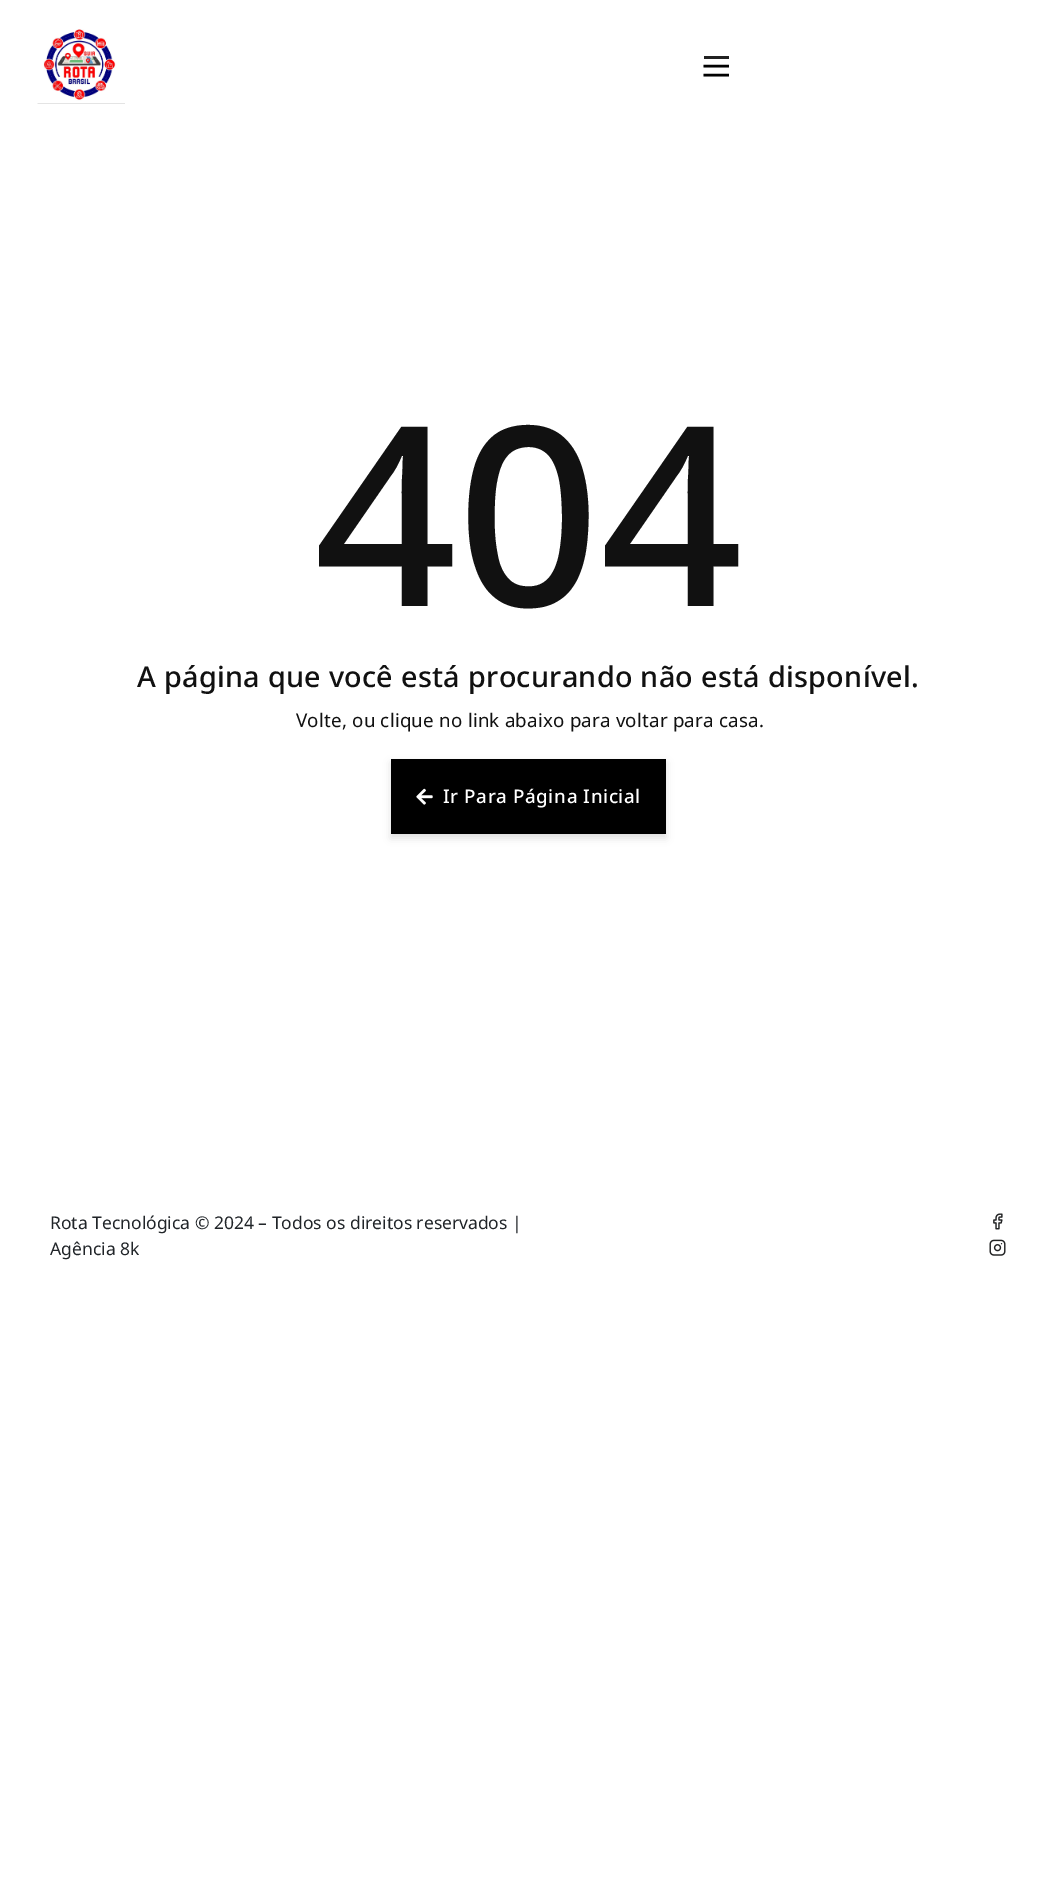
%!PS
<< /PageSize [1056 1883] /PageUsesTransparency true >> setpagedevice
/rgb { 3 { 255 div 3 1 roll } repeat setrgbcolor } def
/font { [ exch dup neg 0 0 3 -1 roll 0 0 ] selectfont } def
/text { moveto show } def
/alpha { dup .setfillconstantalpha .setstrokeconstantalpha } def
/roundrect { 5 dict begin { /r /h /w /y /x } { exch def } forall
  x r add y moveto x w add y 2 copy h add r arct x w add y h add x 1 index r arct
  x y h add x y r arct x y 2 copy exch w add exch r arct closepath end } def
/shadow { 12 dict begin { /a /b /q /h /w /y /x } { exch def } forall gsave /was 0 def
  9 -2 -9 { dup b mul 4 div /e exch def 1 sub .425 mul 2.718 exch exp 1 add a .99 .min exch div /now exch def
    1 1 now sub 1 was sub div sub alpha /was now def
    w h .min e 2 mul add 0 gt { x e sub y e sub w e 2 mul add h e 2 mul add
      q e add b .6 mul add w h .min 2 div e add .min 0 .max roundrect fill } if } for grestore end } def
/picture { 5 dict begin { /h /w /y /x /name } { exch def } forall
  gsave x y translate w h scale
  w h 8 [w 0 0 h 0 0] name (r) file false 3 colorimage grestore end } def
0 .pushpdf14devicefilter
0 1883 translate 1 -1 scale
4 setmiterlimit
255 255 255 rgb
0 0 1056 1883 rectfill
(img_01.rgb) 37 29 88 75 picture
34 34 34 rgb
704 56 25 3 rectfill
0 0 0 rgb
2.6 setlinewidth
703.5 66 moveto 25.5 0 rlineto 703.5 75 moveto 25.5 0 rlineto stroke
391 763 275 75 0 4 0.12 shadow
391 759 275 75 rectfill
(img_02.rgb) 416 788 17 17 picture
(img_03.rgb) 993 1213 10 17 picture
(img_04.rgb) 989 1239 17 17 picture
/NotoSans-Medium 250 font
17 17 17 rgb
(404) 314 606 text
/NotoSans-Medium 28.75 font
137 687 moveto 0.3 0 (A página que você está procurando não está disponível.) ashow
/NotoSans-Regular 18.75 font
296 727 moveto 0.2 0 (Volte, ou clique no link abaixo para voltar para casa.) ashow
/NotoSans-Medium 18.75 font
255 255 255 rgb
443 803 moveto 0.6 0 (Ir Para Página Inicial) ashow
/NotoSans-Regular 17.5 font
33 37 41 rgb
(Rota Tecnológica © 2024 – Todos os direitos reservados |) 50 1229 text
(Agência 8k) 50 1255 text
.poppdf14devicefilter showpage
